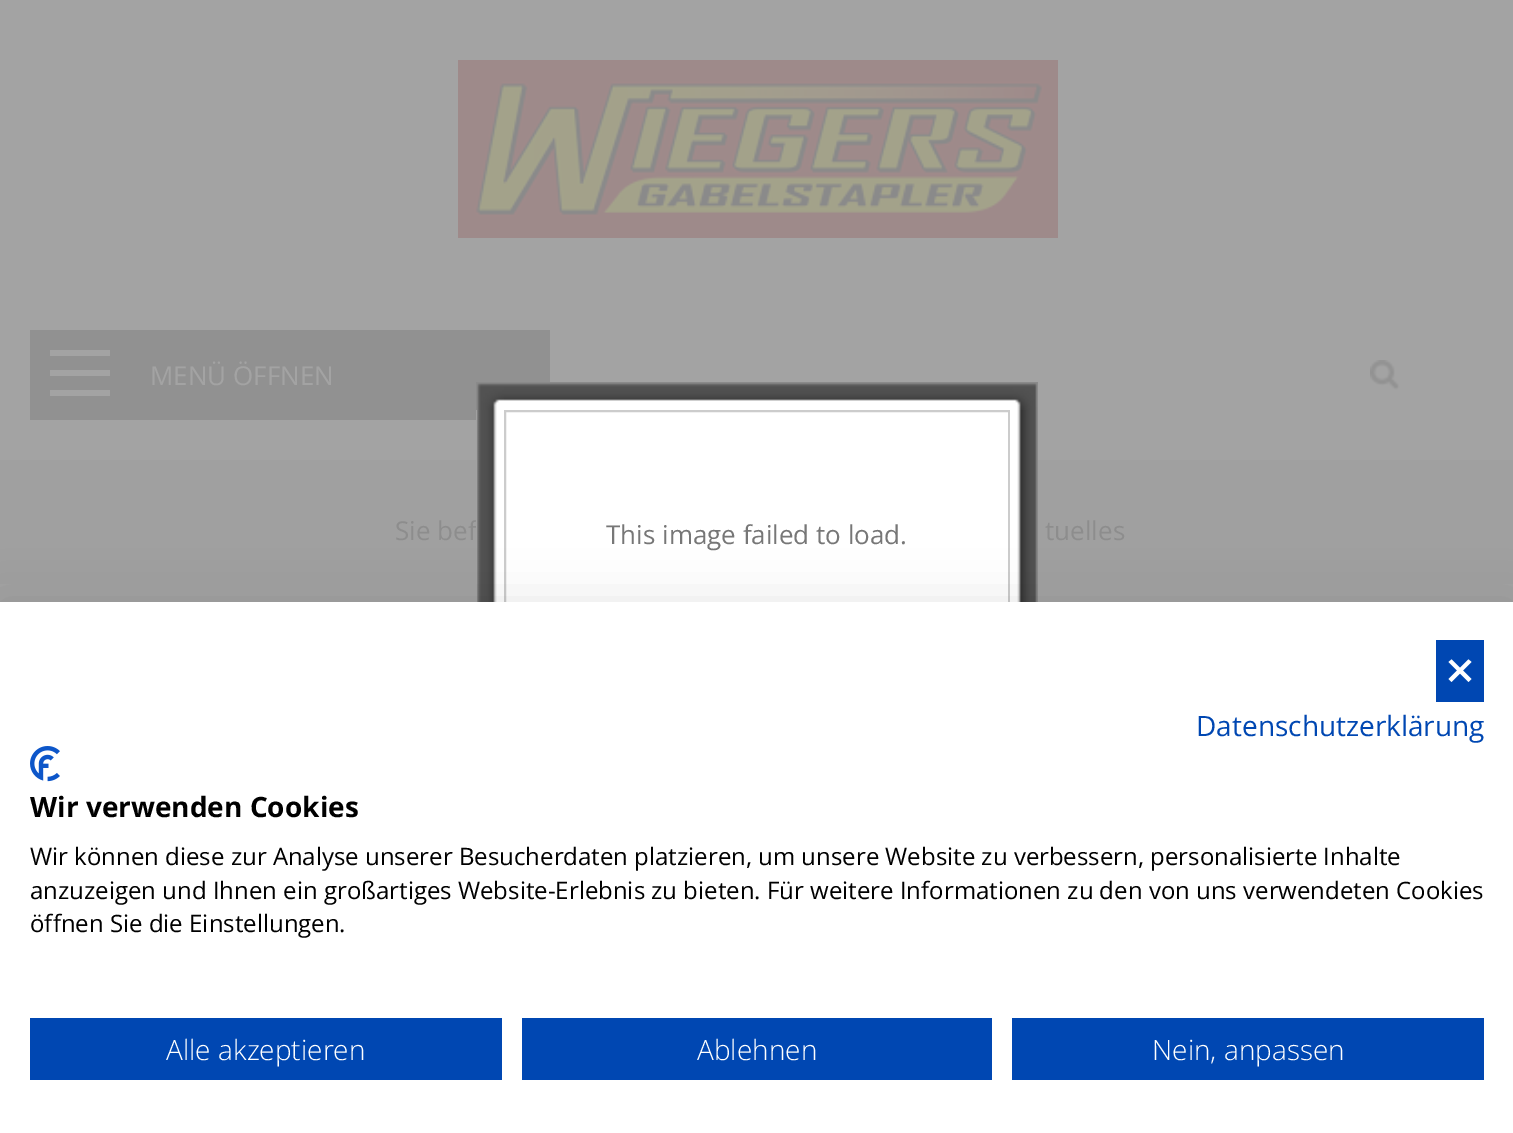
%!PS
<< /PageSize [1513 1133] /PageUsesTransparency true >> setpagedevice
/rgb { 3 { 255 div 3 1 roll } repeat setrgbcolor } def
/font { [ exch dup neg 0 0 3 -1 roll 0 0 ] selectfont } def
/text { moveto show } def
/alpha { dup .setfillconstantalpha .setstrokeconstantalpha } def
/roundrect { 5 dict begin { /r /h /w /y /x } { exch def } forall
  x r add y moveto x w add y 2 copy h add r arct x w add y h add x 1 index r arct
  x y h add x y r arct x y 2 copy exch w add exch r arct closepath end } def
/shadow { 12 dict begin { /a /b /q /h /w /y /x } { exch def } forall gsave /was 0 def
  9 -2 -9 { dup b mul 4 div /e exch def 1 sub .425 mul 2.718 exch exp 1 add a .99 .min exch div /now exch def
    1 1 now sub 1 was sub div sub alpha /was now def
    w h .min e 2 mul add 0 gt { x e sub y e sub w e 2 mul add h e 2 mul add
      q e add b .6 mul add w h .min 2 div e add .min 0 .max roundrect fill } if } for grestore end } def
/picture { 5 dict begin { /h /w /y /x /name } { exch def } forall
  gsave x y translate w h scale
  w h 8 [w 0 0 h 0 0] name (r) file false 3 colorimage grestore end } def
0 .pushpdf14devicefilter
0 1133 translate 1 -1 scale
4 setmiterlimit
163 163 163 rgb
0 0 1513 1133 rectfill
(img_01.rgb) 458 60 600 178 picture
145 145 145 rgb
30 330 520 90 rectfill
163 163 163 rgb
50 390 60 6 rectfill
50 370 60 6 rectfill
50 350 60 6 rectfill
(img_02.rgb) 1370 360 30 30 picture
160 160 160 rgb
0 460 1513 124 rectfill
(img_03.rgb) 476 382 28 28 picture
(img_04.rgb) 504 382 506 28 picture
(img_05.rgb) 1010 382 28 28 picture
255 255 255 rgb
506 412 502 190 rectfill
204 204 204 rgb
2 setlinewidth
505 411 504 246 rectstroke
(img_07.rgb) 1010 410 28 192 picture
/OpenSans-Regular 26 font
163 163 163 rgb
(MENÜ ÖFFNEN) 150 385 text
141 141 141 rgb
(Sie bef) 395 540 text
(tuelles) 1045 540 text
(img_06.rgb) 476 410 28 192 picture
119 119 119 rgb
(This image failed to load.) 606 544 text
0 0 0 rgb
0 602 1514 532 0 24 0.1 shadow
255 255 255 rgb
0 602 1513 531 rectfill
0 71 178 rgb
1436 640 48 62 rectfill
255 255 255 rgb
1468.5 659.5 moveto 3 2.5 rlineto -20 20 rlineto -3 -3 rlineto closepath fill
1448.5 662 moveto 3 -2.5 rlineto 20 19.5 rlineto -3 3 rlineto closepath fill
/OpenSans-Regular 28 font
0 71 178 rgb
(Datenschutzerklärung) 1196 736 text
(img_08.rgb) 30 746 30 36 picture
/OpenSans-Bold 28 font
0 0 0 rgb
(Wir verwenden Cookies) 30 817 text
/OpenSans-Regular 24 font
(Wir können diese zur Analyse unserer Besucherdaten platzieren, um unsere Website zu verbessern, personalisierte Inhalte) 30 865 text
(anzuzeigen und Ihnen ein großartiges Website-Erlebnis zu bieten. Für weitere Informationen zu den von uns verwendeten Cookies) 30 899 text
(öffnen Sie die Einstellungen.) 30 932 text
0 71 178 rgb
30 1018 472 62 rectfill
/OpenSans-Light 28 font
255 255 255 rgb
(Alle akzeptieren) 166 1060 text
0 71 178 rgb
522 1018 470 62 rectfill
255 255 255 rgb
(Ablehnen) 697 1060 text
0 71 178 rgb
1012 1018 472 62 rectfill
255 255 255 rgb
(Nein, anpassen) 1152 1060 text
.poppdf14devicefilter showpage
